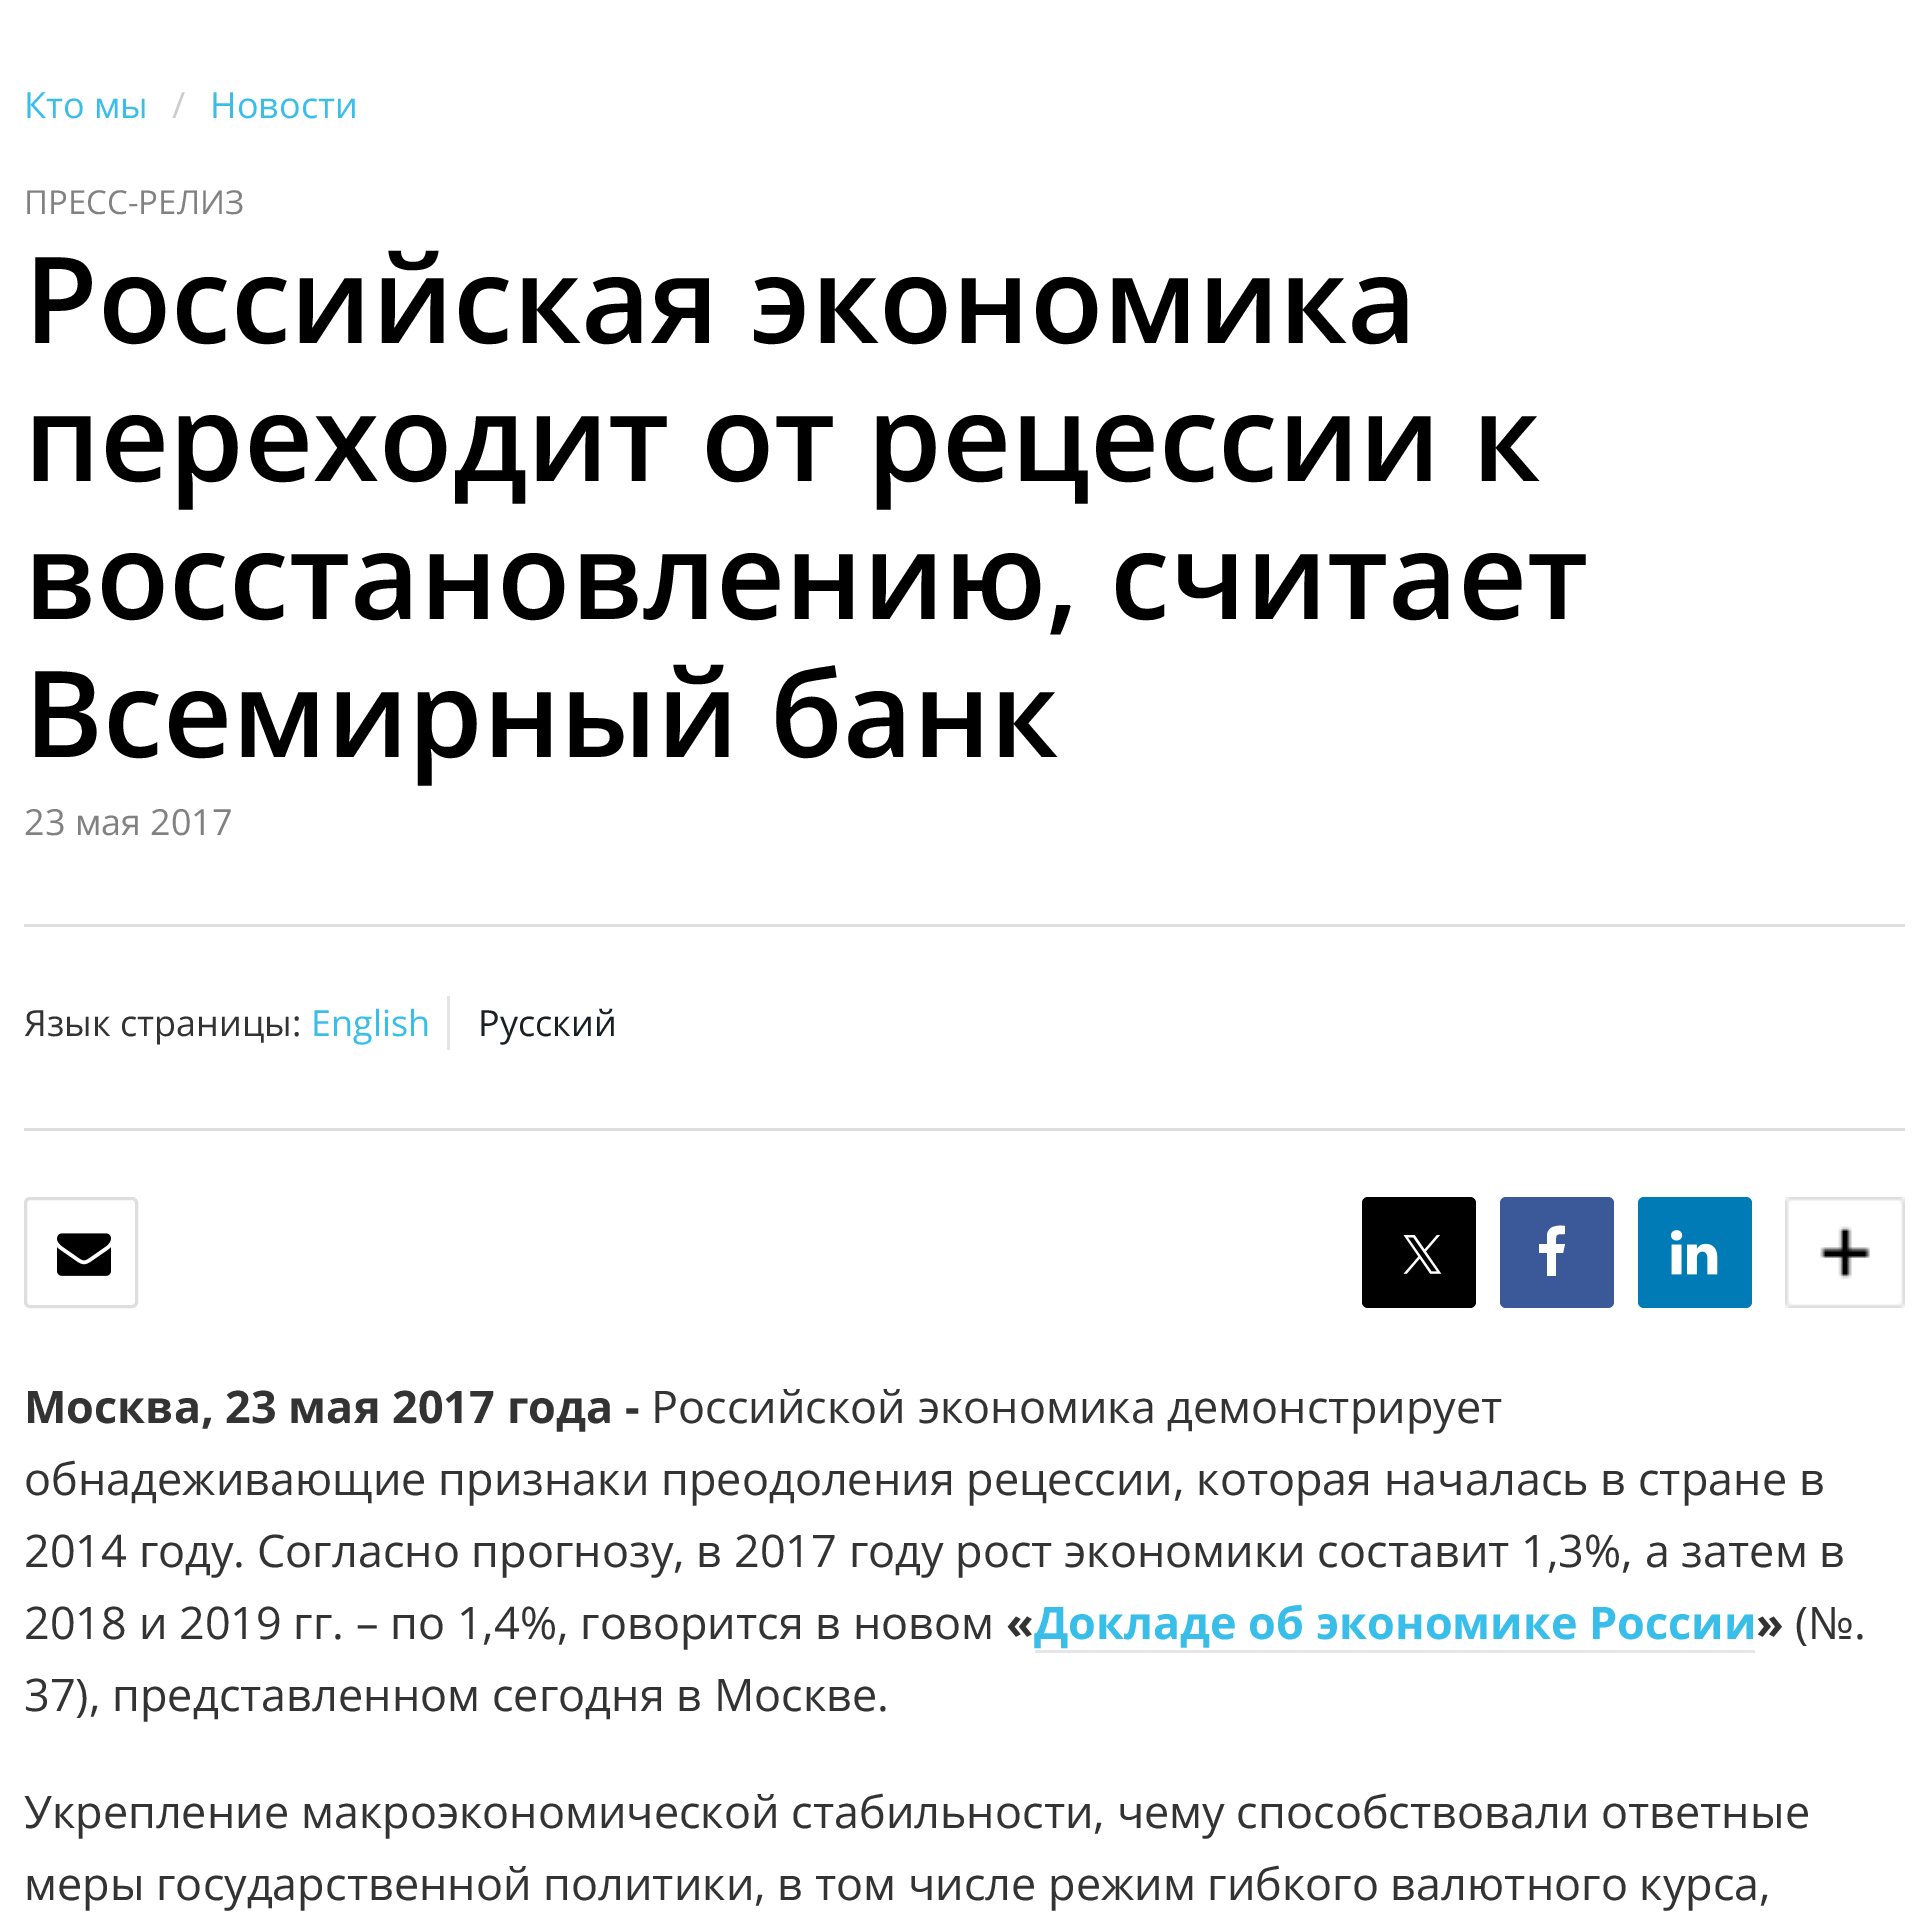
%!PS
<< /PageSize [1927 1927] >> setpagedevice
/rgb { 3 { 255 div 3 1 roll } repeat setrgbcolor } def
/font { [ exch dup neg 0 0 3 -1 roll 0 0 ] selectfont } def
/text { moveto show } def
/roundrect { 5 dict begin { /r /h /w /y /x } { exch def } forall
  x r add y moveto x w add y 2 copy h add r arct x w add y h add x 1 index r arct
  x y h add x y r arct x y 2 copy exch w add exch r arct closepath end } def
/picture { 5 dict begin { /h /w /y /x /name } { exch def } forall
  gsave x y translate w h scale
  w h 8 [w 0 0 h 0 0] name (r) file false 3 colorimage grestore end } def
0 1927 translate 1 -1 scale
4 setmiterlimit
255 255 255 rgb
0 0 1927 1927 rectfill
222 222 222 rgb
24 924 1881 3 rectfill
228 228 228 rgb
447 996 3 54 rectfill
222 222 222 rgb
24 1128 1881 3 rectfill
3 setlinewidth
25.5 1198.5 111 108 4.5 roundrect stroke
(img_01.rgb) 57 1233 54 43 picture
0 0 0 rgb
1362 1197 114 111 6 roundrect fill
(img_02.rgb) 1403 1235 39 39 picture
59 89 152 rgb
1500 1197 114 111 6 roundrect fill
255 255 255 rgb
1565 1226 moveto 0 8 rlineto -10 0 -9 0 -9 10 rcurveto 9 0 rlineto -2 9 rlineto -7 0 rlineto 0 23 rlineto -9 0 rlineto 0 -23 rlineto -8 0 rlineto 0 -9 rlineto 8 0 rlineto 0 -9 rlineto 1 -9 10 -10 18 -9 rcurveto closepath fill
0 123 182 rgb
1638 1197 114 111 6 roundrect fill
(img_03.rgb) 1671 1230 47 45 picture
(img_04.rgb) 1785 1197 120 111 picture
230 230 230 rgb
1035 1650 720 3 rectfill
/OpenSans-Regular 36 font
57 190 234 rgb
(Кто мы) 24 118 text
204 204 204 rgb
(/) 172 118 text
57 190 234 rgb
(Новости) 210 118 text
/OpenSans-Regular 33 font
129 129 129 rgb
(ПРЕСС-РЕЛИЗ) 24 214 text
/OpenSans-SemiBold 120 font
0 0 0 rgb
(Российская экономика) 24 343 text
(переходит от рецессии к) 24 481 text
(восстановлению, считает) 24 619 text
(Всемирный банк) 24 757 text
/OpenSans-Regular 36 font
129 129 129 rgb
(23 мая 2017) 24 835 text
51 51 51 rgb
(Язык страницы:) 24 1036 text
57 190 234 rgb
(English) 311 1036 text
24 31 37 rgb
(Русский) 478 1036 text
/OpenSans-Bold 45 font
51 51 51 rgb
(Москва, 23 мая 2017 года -) 24 1423 text
/OpenSans-Regular 45 font
(Российской экономика демонстрирует) 651 1423 text
(обнадеживающие признаки преодоления рецессии, которая началась в стране в) 24 1495 text
(2014 году. Согласно прогнозу, в 2017 году рост экономики составит 1,3%, а затем в) 24 1567 text
(2018 и 2019 гг. – по 1,4%, говорится в новом) 24 1639 text
/OpenSans-Bold 45 font
(«) 1006 1639 text
57 190 234 rgb
(Докладе об экономике России) 1034 1639 text
51 51 51 rgb
(») 1756 1639 text
/OpenSans-Regular 45 font
(\(№.) 1795 1639 text
(37\), представленном сегодня в Москве.) 24 1711 text
(Укрепление макроэкономической стабильности, чему способствовали ответные) 24 1828 text
(меры государственной политики, в том числе режим гибкого валютного курса,) 24 1900 text
showpage
